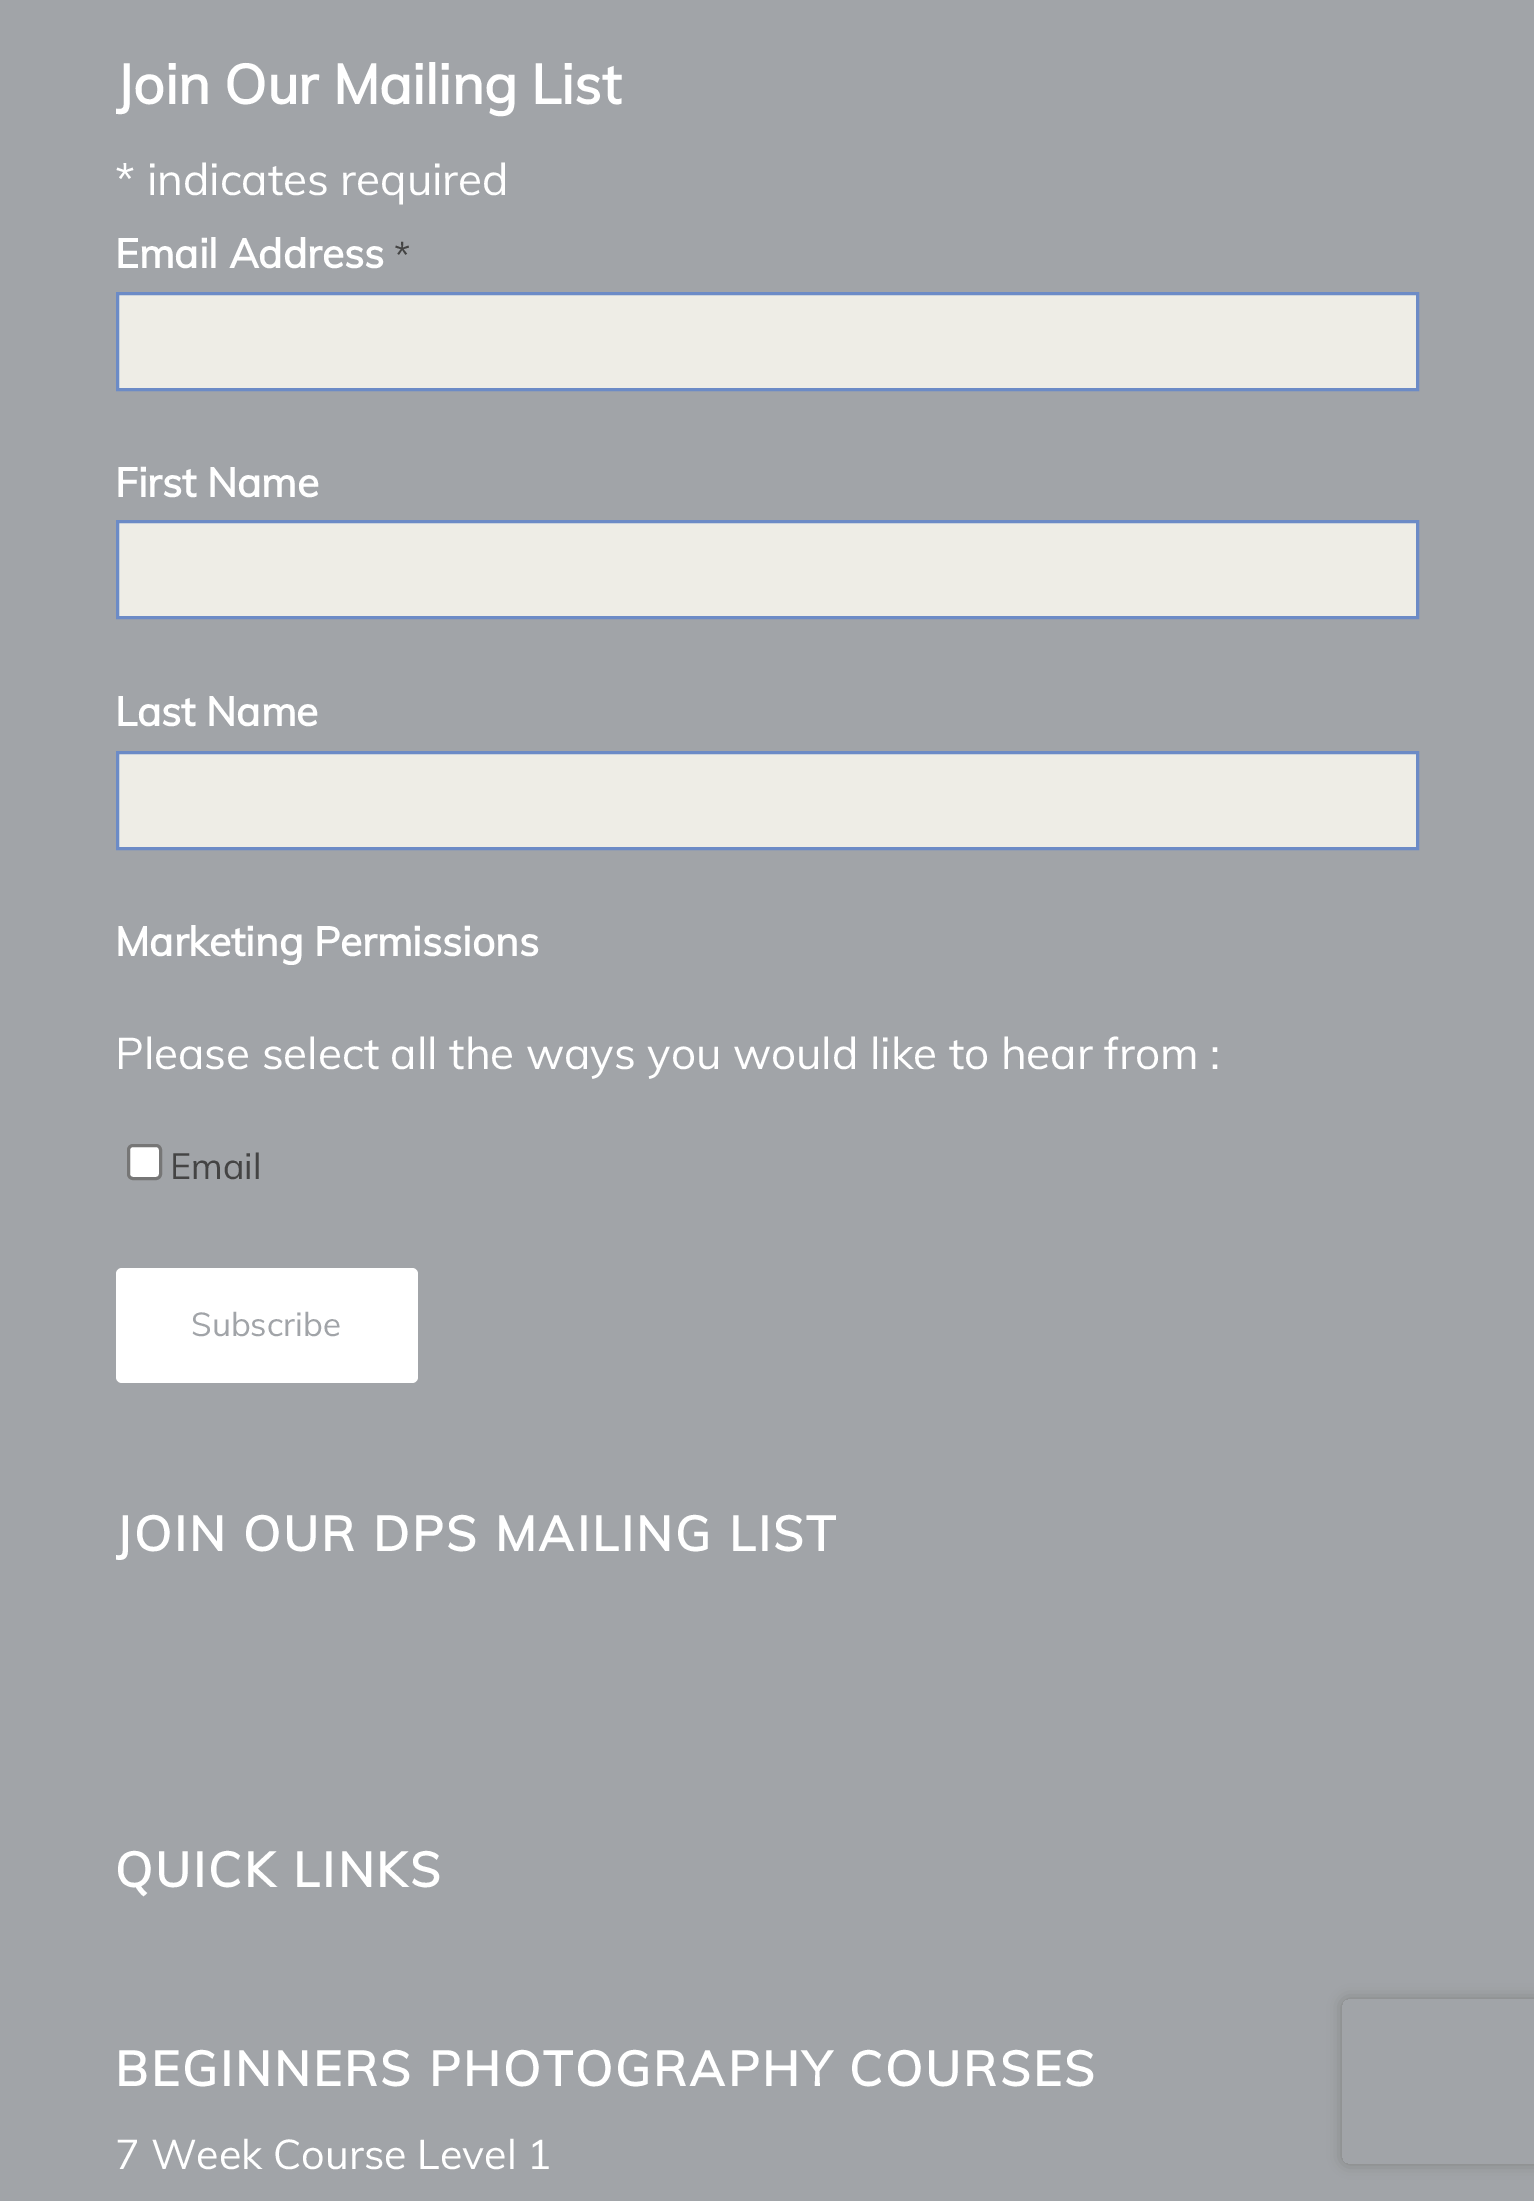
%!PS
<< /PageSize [1534 2201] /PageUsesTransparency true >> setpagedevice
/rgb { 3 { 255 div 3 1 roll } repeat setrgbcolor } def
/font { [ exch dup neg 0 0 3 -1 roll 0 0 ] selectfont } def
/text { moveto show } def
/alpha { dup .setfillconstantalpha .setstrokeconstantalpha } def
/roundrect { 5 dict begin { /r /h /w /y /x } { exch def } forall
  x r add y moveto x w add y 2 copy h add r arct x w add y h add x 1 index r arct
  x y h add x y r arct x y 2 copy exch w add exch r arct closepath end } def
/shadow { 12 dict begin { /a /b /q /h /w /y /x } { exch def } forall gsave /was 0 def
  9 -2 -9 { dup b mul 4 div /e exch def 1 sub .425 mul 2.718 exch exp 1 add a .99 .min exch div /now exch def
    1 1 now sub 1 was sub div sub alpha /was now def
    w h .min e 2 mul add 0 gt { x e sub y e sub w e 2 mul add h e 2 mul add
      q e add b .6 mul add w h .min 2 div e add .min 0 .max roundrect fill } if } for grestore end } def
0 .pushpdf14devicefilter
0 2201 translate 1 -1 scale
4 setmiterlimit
161 164 168 rgb
0 0 1534 2201 rectfill
238 237 230 rgb
117.5 293.5 moveto 1300 0 rlineto 0 96 rlineto -1300 0 rlineto closepath gsave fill grestore
108 139 198 rgb
3 setlinewidth
stroke
238 237 230 rgb
117.5 521.5 moveto 1300 0 rlineto 0 96 rlineto -1300 0 rlineto closepath gsave fill grestore
108 139 198 rgb
stroke
238 237 230 rgb
117.5 752.5 moveto 1300 0 rlineto 0 96 rlineto -1300 0 rlineto closepath gsave fill grestore
108 139 198 rgb
stroke
255 255 255 rgb
128.5 1145.5 32 33 4.5 roundrect gsave fill grestore
118 118 118 rgb
stroke
255 255 255 rgb
116 1268 302 115 6 roundrect fill
gsave
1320 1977 moveto 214 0 rlineto 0 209 rlineto -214 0 rlineto closepath 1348 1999 moveto 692 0 rlineto 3.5 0 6 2.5 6 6 rcurveto 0 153 rlineto 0 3.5 -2.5 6 -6 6 rcurveto -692 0 rlineto -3.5 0 -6 -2.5 -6 -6 rcurveto 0 -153 rlineto 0 -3.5 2.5 -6 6 -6 rcurveto closepath eoclip newpath
128 128 128 rgb
1342 1999 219 165 6 7 1 shadow
grestore
gsave
116 55 1303 1328 rectclip
/Muli-Bold 55 font
(Join Our Mailing List) 115 104 text
grestore
/Muli-Regular 44 font
(* indicates required) 115 195 text
/Muli-Bold 40.5 font
(Email Address) 115 268 text
/Muli-Regular 36 font
68 68 68 rgb
(*) 394 268 text
/Muli-Bold 40.5 font
255 255 255 rgb
(First Name) 115 497 text
(Last Name) 115 726 text
(Marketing Permissions) 115 956 text
/Muli-Regular 44 font
(Please select all the ways you would like to hear from :) 115 1069 text
/Muli-Regular 36 font
68 68 68 rgb
(Email) 170 1179 text
/Muli-Regular 33 font
161 164 168 rgb
(Subscribe) 191 1336 text
gsave
116 1466 1303 115 rectclip
/Muli-Bold 48.4 font
255 255 255 rgb
115 1551 moveto 2.75 0 (JOIN OUR DPS MAILING LIST) ashow
grestore
/Muli-Bold 48.4 font
255 255 255 rgb
115 1887 moveto 2.75 0 (QUICK LINKS) ashow
115 2086 moveto 2.75 0 (BEGINNERS PHOTOGRAPHY COURSES) ashow
/Muli-Regular 41.25 font
(7 Week Course Level 1) 115 2169 text
.poppdf14devicefilter showpage
